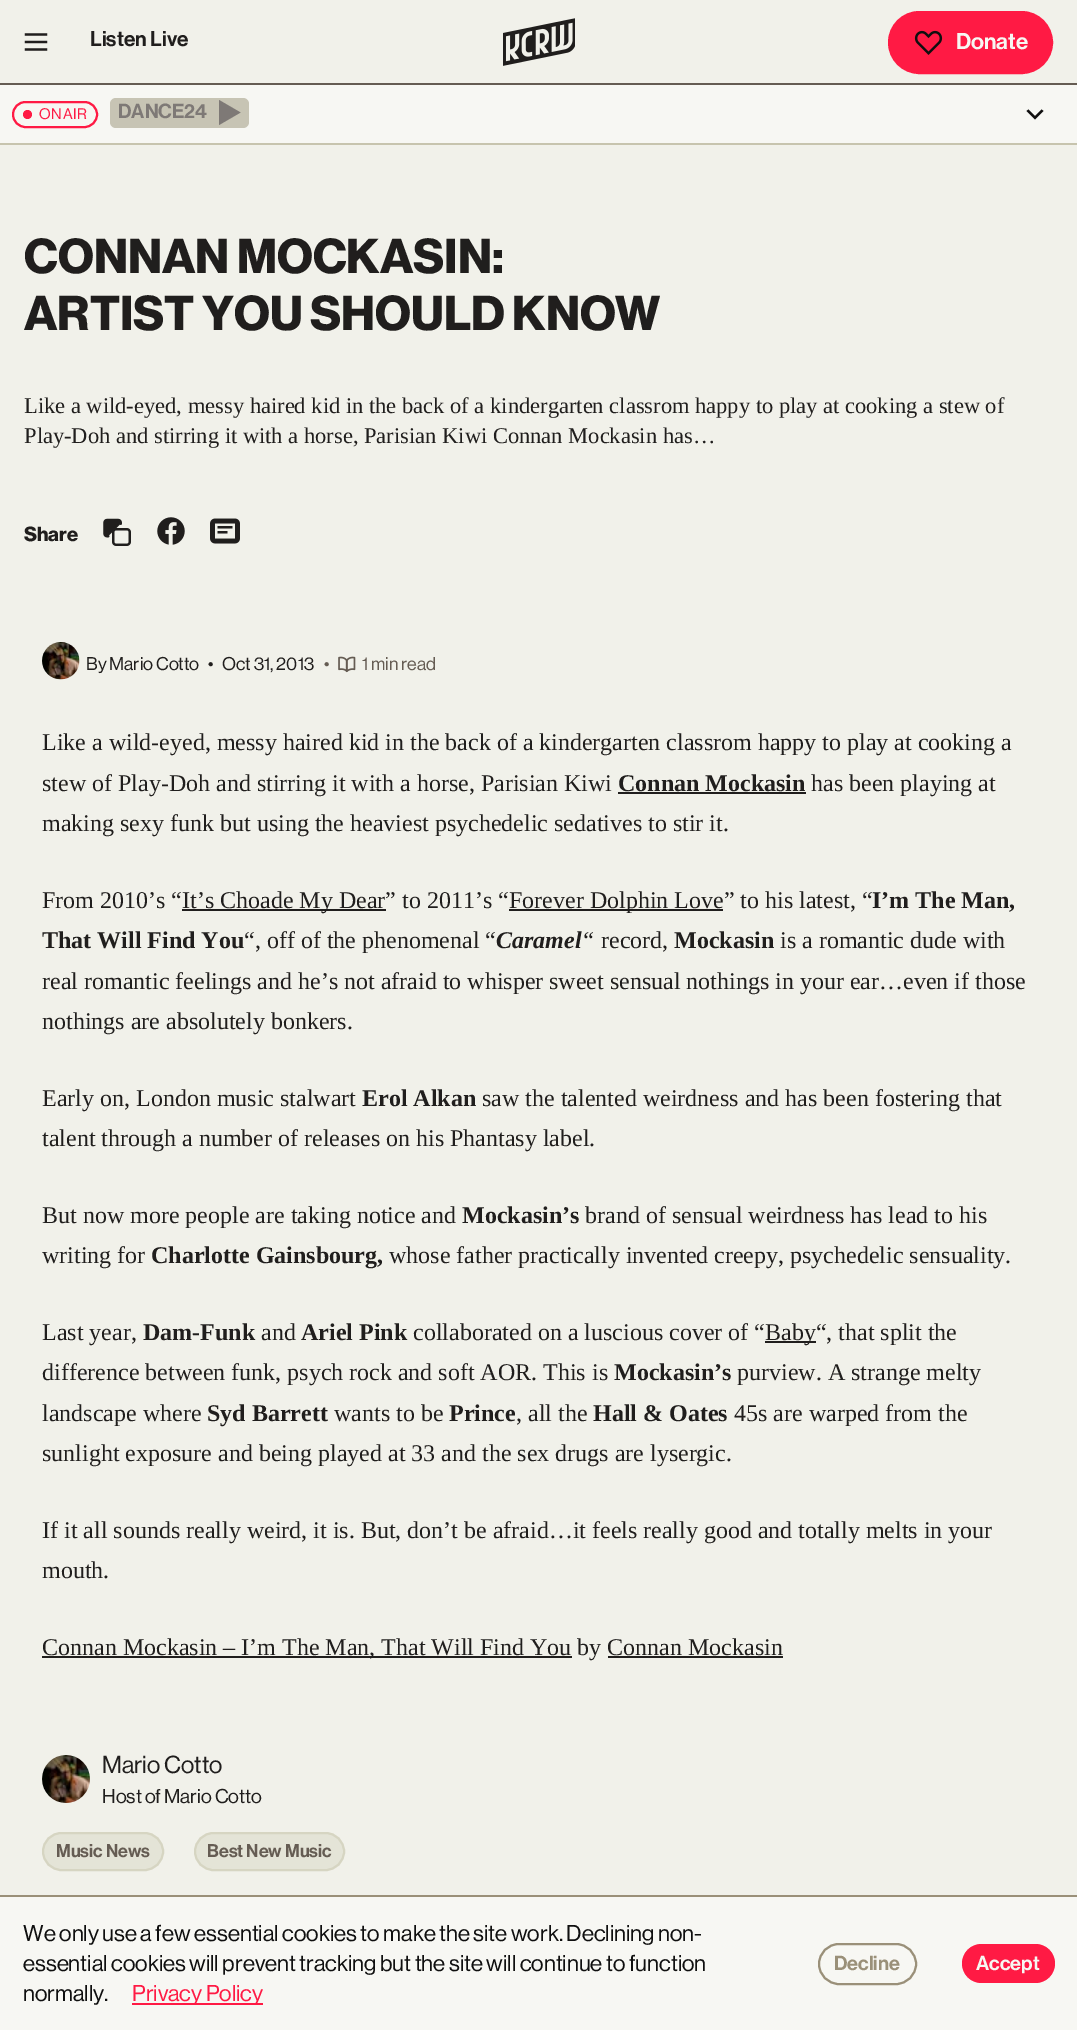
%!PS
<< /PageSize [1077 2030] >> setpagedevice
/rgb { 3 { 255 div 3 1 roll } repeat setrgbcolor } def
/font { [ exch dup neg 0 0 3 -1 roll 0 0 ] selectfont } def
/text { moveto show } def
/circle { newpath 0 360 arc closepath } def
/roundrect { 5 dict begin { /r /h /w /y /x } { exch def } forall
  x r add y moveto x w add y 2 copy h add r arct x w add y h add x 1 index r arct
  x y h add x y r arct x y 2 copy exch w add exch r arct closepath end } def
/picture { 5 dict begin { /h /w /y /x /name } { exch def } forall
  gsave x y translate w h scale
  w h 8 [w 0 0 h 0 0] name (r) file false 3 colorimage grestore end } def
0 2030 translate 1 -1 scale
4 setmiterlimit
241 241 234 rgb
0 0 1077 2030 rectfill
101 92 83 rgb
0 83 1077 2 rectfill
(img_01.rgb) 24 33 24 18 picture
(img_02.rgb) 503 18 72 48 picture
255 26 68 rgb
889 12 163 61 30.5 roundrect gsave fill grestore
2 setlinewidth
stroke
(img_03.rgb) 914 30 29 25 picture
247 247 243 rgb
0 85 1077 58 rectfill
199 196 174 rgb
0 143 1077 2 rectfill
255 26 68 rgb
13 102 84 25 12.5 roundrect stroke
27.5 114.5 4.5 circle fill
199 196 180 rgb
110 98 139 30 6 roundrect fill
126 121 118 rgb
219 100 moveto 0 25 rlineto 21.5 -12.5 rlineto closepath fill
16 15 15 rgb
1026.5 111 moveto 2 -1.5 rlineto 6.5 6.5 rlineto 6.5 -6.5 rlineto 2 1.5 rlineto -8.5 8.5 rlineto closepath eofill
(img_04.rgb) 103 518 28 28 picture
(img_05.rgb) 157 517 28 28 picture
(img_06.rgb) 210 518 30 26 picture
(img_07.rgb) 42 642 38 38 picture
(img_08.rgb) 338 656 18 17 picture
32 30 29 rgb
618 792 188 2 rectfill
182 909 204 2 rectfill
509 909 214 2 rectfill
765 1341 51 2 rectfill
42 1656 530 2 rectfill
608 1656 175 2 rectfill
(img_09.rgb) 42 1755 48 48 picture
228 228 215 rgb
43 1833 120 37 18.5 roundrect gsave fill grestore
214 213 194 rgb
stroke
228 228 215 rgb
195 1833 149 37 18.5 roundrect gsave fill grestore
214 213 194 rgb
stroke
247 247 243 rgb
0 1897 1077 133 rectfill
154 144 121 rgb
0 1895 1077 2 rectfill
255 26 68 rgb
132 2003 131 2 rectfill
154 144 121 rgb
819 1944 97 40 20 roundrect stroke
255 26 68 rgb
962 1944 93 39 19.5 roundrect fill
/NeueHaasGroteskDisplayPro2-Medium 21 font
32 30 29 rgb
(Listen Live) 90 46 text
/NeueHaasGroteskDisplayPro2-Medium 22.5 font
247 247 243 rgb
(Donate) 956 49 text
/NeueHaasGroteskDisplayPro-Medium 15 font
255 26 68 rgb
(ON AIR) 39 119 text
/NeueHaasGroteskDisplayPro2-Medium 20 font
126 121 118 rgb
(DANCE24) 118 118 text
/NeueHaasGroteskDisplayPro-Bold 48 font
32 30 29 rgb
(CONNAN MOCKASIN:) 24 273 text
(ARTIST YOU SHOULD KNOW) 24 330 text
/LiberationSerif-Regular 22.5 font
(Like a wild-eyed, messy haired kid in the back of a kindergarten classrom happy to play at cooking a stew of) 24 413 text
(Play-Doh and stirring it with a horse, Parisian Kiwi Connan Mockasin has…) 24 443 text
/NeueHaasGroteskDisplayPro-Bold 20 font
(Share) 24 541 text
/NeueHaasGroteskDisplayPro-Medium 18 font
(By Mario Cotto) 86 670 text
(•) 208 670 text
(Oct 31, 2013) 222 670 text
101 92 83 rgb
(•) 324 670 text
(1 min read) 362 670 text
/LiberationSerif-Regular 24 font
32 30 29 rgb
(Like a wild-eyed, messy haired kid in the back of a kindergarten classrom happy to play at cooking a) 42 750 text
(stew of Play-Doh and stirring it with a horse, Parisian Kiwi) 42 791 text
/LiberationSerif-Bold 24 font
(Connan Mockasin) 618 791 text
/LiberationSerif-Regular 24 font
(has been playing at) 811 791 text
(making sexy funk but using the heaviest psychedelic sedatives to stir it.) 42 831 text
(From 2010’s “) 42 908 text
(It’s Choade My Dear” to 2011’s “) 182 908 text
(Forever Dolphin Love” to his latest, “) 509 908 text
/LiberationSerif-Bold 24 font
(I’m The Man,) 872 908 text
(That Will Find You) 42 948 text
/LiberationSerif-Regular 24 font
(“, off of the phenomenal “) 244 948 text
/LiberationSerif-BoldItalic 24 font
(Caramel) 496 948 text
/LiberationSerif-Italic 24 font
(“) 581 948 text
/LiberationSerif-Regular 24 font
(record,) 601 948 text
/LiberationSerif-Bold 24 font
(Mockasin) 674 948 text
/LiberationSerif-Regular 24 font
(is a romantic dude with) 780 948 text
(real romantic feelings and he’s not afraid to whisper sweet sensual nothings in your ear…even if those) 42 989 text
(nothings are absolutely bonkers.) 42 1029 text
(Early on, London music stalwart) 42 1106 text
/LiberationSerif-Bold 24 font
(Erol Alkan) 362 1106 text
/LiberationSerif-Regular 24 font
(saw the talented weirdness and has been fostering that) 482 1106 text
(talent through a number of releases on his Phantasy label.) 42 1146 text
(But now more people are taking notice and) 42 1223 text
/LiberationSerif-Bold 24 font
(Mockasin’s) 462 1223 text
/LiberationSerif-Regular 24 font
(brand of sensual weirdness has lead to his) 585 1223 text
(writing for) 42 1263 text
/LiberationSerif-Bold 24 font
(Charlotte Gainsbourg,) 151 1263 text
/LiberationSerif-Regular 24 font
(whose father practically invented creepy, psychedelic sensuality.) 389 1263 text
(Last year,) 42 1340 text
/LiberationSerif-Bold 24 font
(Dam-Funk) 143 1340 text
/LiberationSerif-Regular 24 font
(and) 261 1340 text
/LiberationSerif-Bold 24 font
(Ariel Pink) 301 1340 text
/LiberationSerif-Regular 24 font
(collaborated on a luscious cover of “) 413 1340 text
(Baby“, that split the) 765 1340 text
(difference between funk, psych rock and soft AOR. This is) 42 1380 text
/LiberationSerif-Bold 24 font
(Mockasin’s) 614 1380 text
/LiberationSerif-Regular 24 font
(purview. A strange melty) 737 1380 text
(landscape where) 42 1421 text
/LiberationSerif-Bold 24 font
(Syd Barrett) 207 1421 text
/LiberationSerif-Regular 24 font
(wants to be) 334 1421 text
/LiberationSerif-Bold 24 font
(Prince) 449 1421 text
/LiberationSerif-Regular 24 font
(, all the) 516 1421 text
/LiberationSerif-Bold 24 font
(Hall & Oates) 593 1421 text
/LiberationSerif-Regular 24 font
(45s are warped from the) 734 1421 text
(sunlight exposure and being played at 33 and the sex drugs are lysergic.) 42 1461 text
(If it all sounds really weird, it is. But, don’t be afraid…it feels really good and totally melts in your) 42 1538 text
(mouth.) 42 1578 text
(Connan Mockasin – I’m The Man, That Will Find You by Connan Mockasin) 42 1655 text
/NeueHaasGroteskDisplayPro-Medium 24 font
(Mario Cotto) 102 1773 text
/NeueHaasGroteskDisplayPro-Medium 19.5 font
(Host of Mario Cotto) 102 1803 text
/NeueHaasGroteskDisplayPro2-Medium 18 font
101 92 83 rgb
(Music News) 56 1857 text
(Best New Music) 207 1857 text
/NeueHaasGroteskDisplayPro-Medium 22.5 font
15 15 15 rgb
(We only use a few essential cookies to make the site work. Declining non-) 23 1941 text
(essential cookies will prevent tracking but the site will continue to function) 23 1971 text
(normally.) 23 2001 text
255 26 68 rgb
(Privacy Policy) 132 2001 text
/NeueHaasGroteskDisplayPro2-Medium 20 font
154 144 121 rgb
(Decline) 834 1970 text
247 247 243 rgb
(Accept) 976 1970 text
showpage
